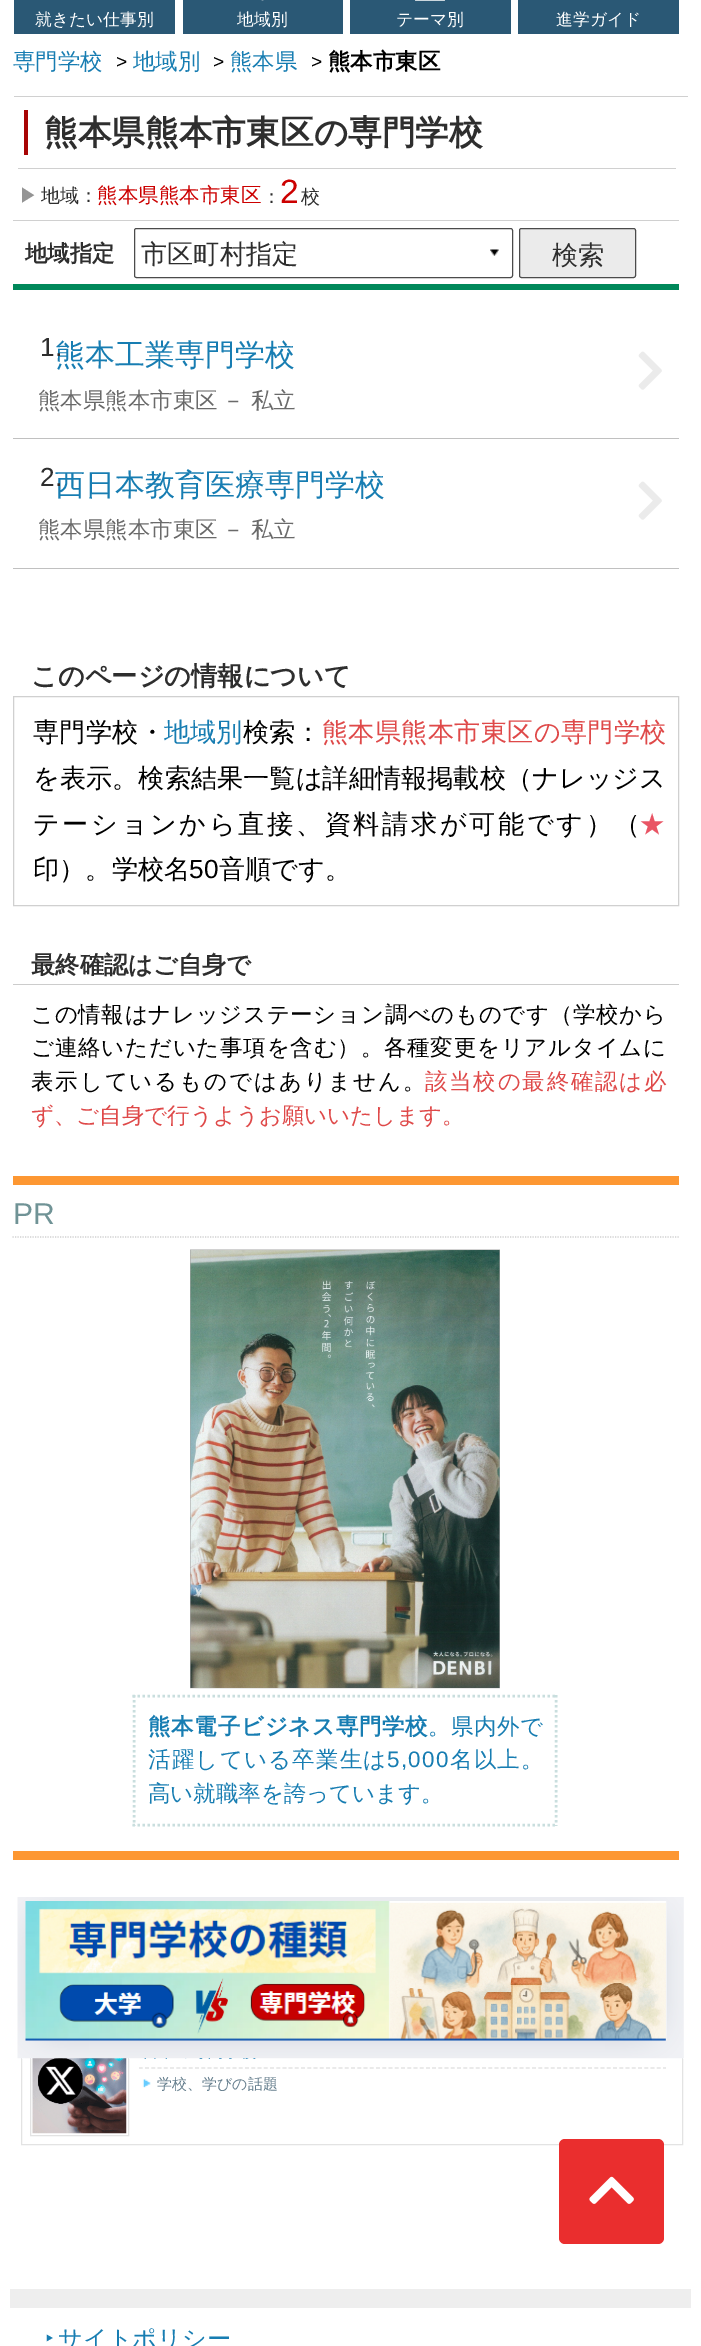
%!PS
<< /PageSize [701 2346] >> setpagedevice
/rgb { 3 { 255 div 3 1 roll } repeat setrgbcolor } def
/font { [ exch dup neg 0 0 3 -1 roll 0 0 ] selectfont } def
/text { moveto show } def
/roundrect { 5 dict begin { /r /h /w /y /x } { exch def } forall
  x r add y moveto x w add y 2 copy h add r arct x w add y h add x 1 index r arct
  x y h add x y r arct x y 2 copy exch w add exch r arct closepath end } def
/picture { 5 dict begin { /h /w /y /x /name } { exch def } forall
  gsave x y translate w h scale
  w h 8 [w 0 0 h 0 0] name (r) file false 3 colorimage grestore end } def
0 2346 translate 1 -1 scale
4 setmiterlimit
255 255 255 rgb
0 0 701 2346 rectfill
42 88 117 rgb
14 0 161 34 rectfill
183 0 160 34 rectfill
(img_01.rgb) 261 0 3 1 picture
350 0 161 34 rectfill
(img_02.rgb) 415 0 30 1 picture
518 0 161 34 rectfill
208 208 208 rgb
14 96 674 1 rectfill
18 168 658 1 rectfill
168 5 5 rgb
24 110 4 45 rectfill
208 208 208 rgb
13 220 666 1 rectfill
0 136 90 rgb
13 284 666 6 rectfill
(img_03.rgb) 490 249 9 7 picture
75 75 75 rgb
134.5 228.5 378 49 2 roundrect stroke
235 235 235 rgb
519.5 228.5 116 49 2 roundrect gsave fill grestore
75 75 75 rgb
stroke
192 192 192 rgb
13 438 666 1 rectfill
(img_04.rgb) 638 351 24 39 picture
13 568 666 1 rectfill
(img_04.rgb) 638 481 24 39 picture
208 208 208 rgb
13.5 696.5 665 209 rectstroke
204 204 204 rgb
13 984 666 1 rectfill
253 151 50 rgb
13 1176 666 9 rectfill
13 1851 666 9 rectfill
208 208 208 rgb
1.2 setlinewidth
[1.25 1.25] 0 setdash
12.5 1237 moveto 666.5 0 rlineto stroke
(img_05.rgb) 190 1249 310 440 picture
201 222 222 rgb
2.5 setlinewidth
[2.5 2.5] 0 setdash
132.5 1696 moveto 425 0 rlineto stroke
556 1695 moveto 0 131 rlineto stroke
132.5 1825 moveto 425 0 rlineto stroke
134 1695 moveto 0 131 rlineto stroke
227 227 227 rgb
1 setlinewidth
[] 0 setdash
21.5 2029.5 661 115 rectstroke
30.5 2038.5 98 97 rectstroke
(img_07.rgb) 32 2058 95 76 picture
(img_06.rgb) 17 1897 667 162 picture
1.2 setlinewidth
[3.75 2.49] 0 setdash
139 2068 moveto 527 0 rlineto stroke
(img_08.rgb) 142 2079 9 9 picture
234 46 46 rgb
559 2139 105 105 6 roundrect fill
(img_09.rgb) 589 2176 45 28 picture
238 238 238 rgb
10 2289 681 19 rectfill
/WenQuanYiZenHei-Medium 16.75 font
255 255 255 rgb
(就きたい仕事別) 35 25 text
(地域別) 237 25 text
(テーマ別) 396 25 text
(進学ガイド) 556 25 text
/WenQuanYiZenHei-Medium 22.45 font
23 125 178 rgb
(専門学校) 13 69 text
/LiberationSans-Regular 19 font
0 0 0 rgb
(>) 116 68 text
/WenQuanYiZenHei-Medium 22.45 font
23 125 178 rgb
(地域別) 133 69 text
/LiberationSans-Regular 19 font
0 0 0 rgb
(>) 213 68 text
/WenQuanYiZenHei-Medium 22.45 font
23 125 178 rgb
(熊本県) 230 69 text
/LiberationSans-Regular 19 font
0 0 0 rgb
(>) 311 68 text
/WenQuanYiZenHei-Bold 22.45 font
(熊本市東区) 328 69 text
/WenQuanYiZenHei-Bold 33.7 font
46 46 46 rgb
(熊本県熊本市東区の専門学校) 44 144 text
/WenQuanYiZenHei-Medium 19 font
148 148 148 rgb
(▶) 19 202 text
46 46 46 rgb
(地域：) 41 202 text
/WenQuanYiZenHei-Medium 20.5 font
204 0 0 rgb
(熊本県熊本市東区) 97 202 text
/WenQuanYiZenHei-Medium 19 font
46 46 46 rgb
(：) 262 203 text
/LiberationSans-Regular 33.7 font
204 0 0 rgb
(2) 280 203 text
/WenQuanYiZenHei-Medium 19 font
46 46 46 rgb
(校) 301 203 text
/WenQuanYiZenHei-Bold 22.45 font
(地域指定) 25 261 text
/WenQuanYiZenHei-Medium 26.2 font
(市区町村指定) 141 263 text
(検索) 552 264 text
/WenQuanYiZenHei-Medium 30 font
23 125 178 rgb
(熊本工業専門学校) 55 365 text
/LiberationSans-Regular 26.2 font
46 46 46 rgb
(1.) 40 356 text
/WenQuanYiZenHei-Medium 22.45 font
106 106 106 rgb
(熊本県熊本市東区) 38 408 text
(－) 222 408 text
(私立) 251 408 text
/WenQuanYiZenHei-Medium 30 font
23 125 178 rgb
(西日本教育医療専門学校) 55 495 text
/LiberationSans-Regular 26.2 font
46 46 46 rgb
(2.) 40 486 text
/WenQuanYiZenHei-Medium 22.45 font
106 106 106 rgb
(熊本県熊本市東区) 38 537 text
(－) 222 537 text
(私立) 251 537 text
/WenQuanYiZenHei-Bold 26.2 font
46 46 46 rgb
(このページの情報について) 31 685 text
/WenQuanYiZenHei-Medium 26.2 font
0 0 0 rgb
33 741 moveto 0.25 0 (専門学校・) ashow
23 125 178 rgb
(地域別) 164 741 text
0 0 0 rgb
(検索：) 243 741 text
223 73 73 rgb
322 741 moveto 0.25 0 (熊本県熊本市東区の専門学校) ashow
0 0 0 rgb
(を表示。検索結果一覧は詳細情報掲載校（ナレッジス) 33 787 text
33 833 moveto 2.6 0 (テーションから直接、資料請求が可能です）（) ashow
233 84 100 rgb
(★) 639 833 text
0 0 0 rgb
(印）。学校名) 33 878 text
/LiberationSans-Regular 26.2 font
(50) 189 878 text
/WenQuanYiZenHei-Medium 26.2 font
(音順です。) 219 878 text
/WenQuanYiZenHei-Bold 24.25 font
46 46 46 rgb
(最終確認はご自身で) 31 973 text
/WenQuanYiZenHei-Medium 22.45 font
0 0 0 rgb
31 1022 moveto 0.7 0 (この情報はナレッジステーション調べのものです（学校から) ashow
31 1055 moveto 0.8 0 (ご連絡いただいた事項を含む）。各種変更をリアルタイムに) ashow
31 1089 moveto 1.9 0 (表示しているものではありません。) ashow
223 73 73 rgb
425 1089 moveto 1.75 0 (該当校の最終確認は必) ashow
(ず、ご自身で行うようお願いいたします。) 31 1123 text
/LiberationSans-Regular 30 font
112 147 150 rgb
(PR) 13 1224 text
/WenQuanYiZenHei-Bold 22.45 font
23 125 178 rgb
148 1734 moveto 0.75 0 (熊本電子ビジネス専門学校) ashow
/WenQuanYiZenHei-Medium 22.45 font
428 1734 moveto 0.5 0 (。県内外で) ashow
148 1767 moveto 1.25 0 (活躍している卒業生は) ashow
/LiberationSans-Regular 22.45 font
387 1767 moveto 1.25 0 (5,000) ashow
/WenQuanYiZenHei-Medium 22.45 font
450 1767 moveto 1.25 0 (名以上。) ashow
(高い就職率を誇っています。) 148 1801 text
/WenQuanYiZenHei-Medium 15 font
101 126 141 rgb
(学校、学びの話題) 157 2089 text
/NotoSans-Regular 24.25 font
23 125 178 rgb
(‣) 45 2347 text
/WenQuanYiZenHei-Medium 24.25 font
(サイトポリシー) 58 2347 text
showpage
